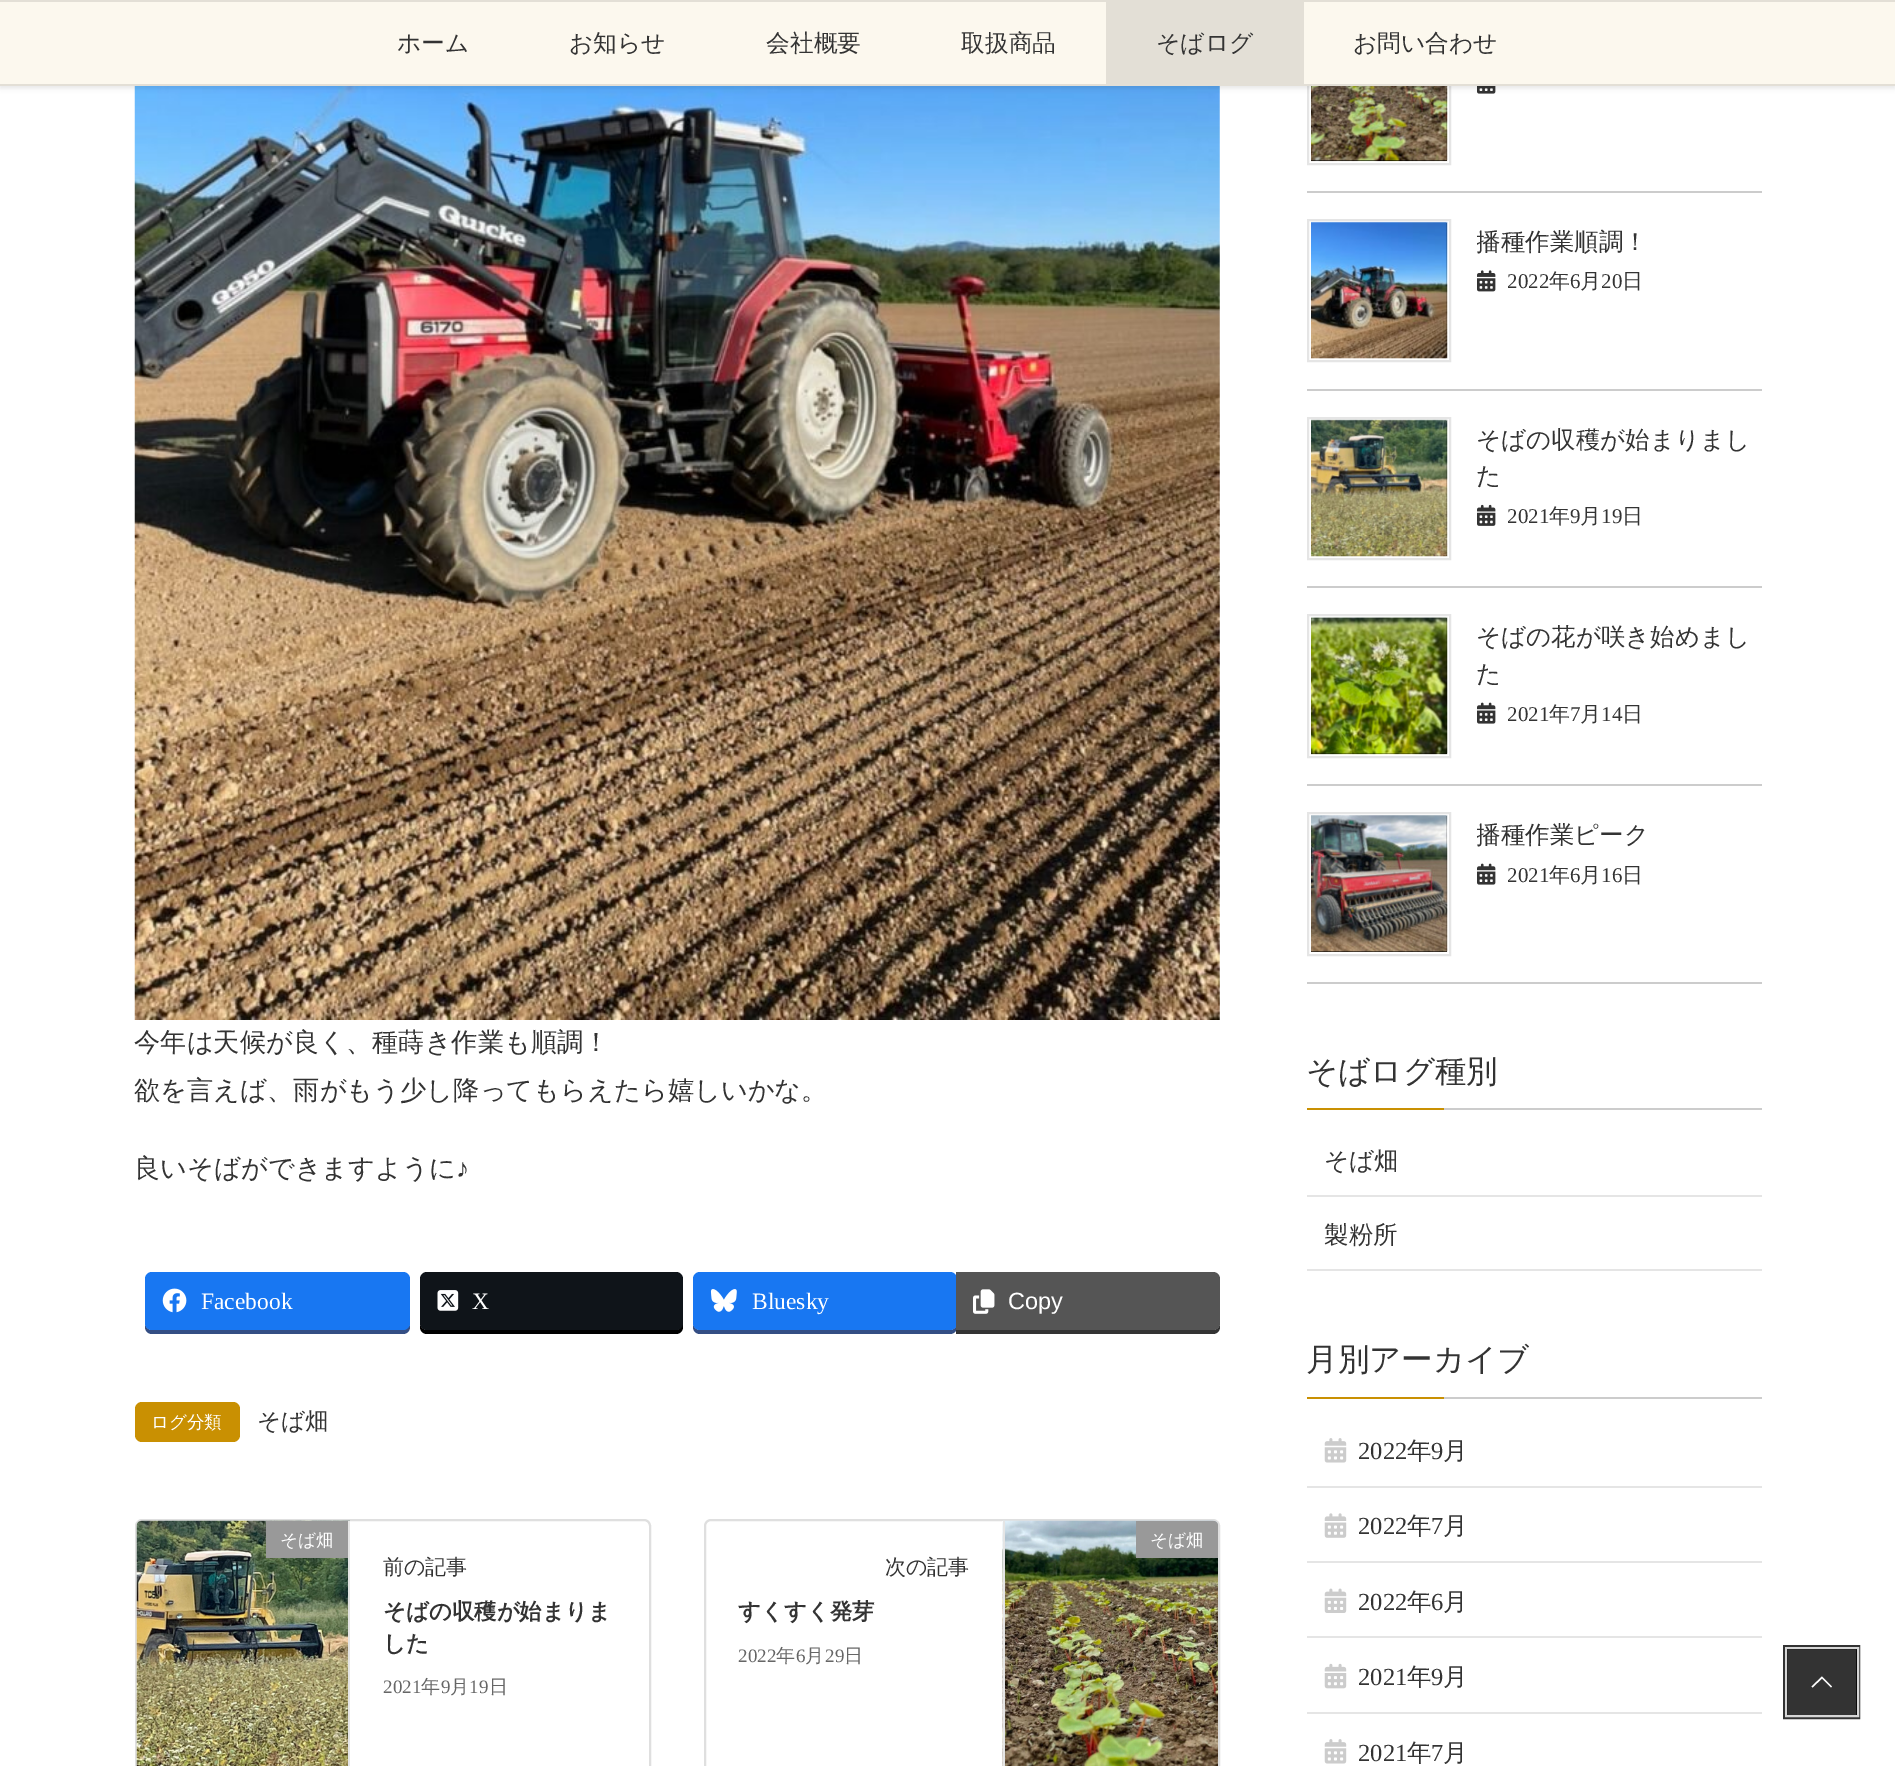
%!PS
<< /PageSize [1895 1766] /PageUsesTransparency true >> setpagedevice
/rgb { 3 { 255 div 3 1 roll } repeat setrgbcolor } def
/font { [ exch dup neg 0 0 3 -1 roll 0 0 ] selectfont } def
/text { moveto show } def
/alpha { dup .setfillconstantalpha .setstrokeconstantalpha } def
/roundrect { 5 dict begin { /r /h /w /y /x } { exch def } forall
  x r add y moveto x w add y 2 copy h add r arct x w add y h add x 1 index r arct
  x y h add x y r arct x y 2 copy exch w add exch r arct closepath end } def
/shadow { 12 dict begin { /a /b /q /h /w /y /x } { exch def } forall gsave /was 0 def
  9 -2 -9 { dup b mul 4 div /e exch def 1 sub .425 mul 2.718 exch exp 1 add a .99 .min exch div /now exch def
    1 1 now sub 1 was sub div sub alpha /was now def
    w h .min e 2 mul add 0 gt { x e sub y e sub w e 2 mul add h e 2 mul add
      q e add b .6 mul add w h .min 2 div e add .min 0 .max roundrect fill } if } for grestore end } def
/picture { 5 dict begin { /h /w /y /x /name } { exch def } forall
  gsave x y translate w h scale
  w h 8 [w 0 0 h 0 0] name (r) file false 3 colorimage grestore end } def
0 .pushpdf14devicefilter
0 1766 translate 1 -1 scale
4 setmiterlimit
255 255 255 rgb
0 0 1895 1766 rectfill
(img_01.rgb) 134 86 1086 934 picture
0 0 0 rgb
1311 86 136 75 rectfill
(img_08.rgb) 1311 86 137 76 picture
229 229 229 rgb
2 setlinewidth
1308 22 142 142 rectstroke
(img_09.rgb) 1477 86 19 8 picture
0 0 0 rgb
0 2 1895 86 0 2.5 0.1 shadow
252 248 238 rgb
0 2 1895 82 rectfill
227 223 214 rgb
0 0 1895 2 rectfill
0 84 1895 2 rectfill
1106 2 198 82 rectfill
52 78 132 rgb
145 1281 moveto 0 46 rlineto 0 4 3 7 7 7 rcurveto 251 0 rlineto 4 0 7 -3 7 -7 rcurveto 0 -44 rlineto 0 -3 rlineto 0 43 rlineto 0 4 -4 7 -8 7 rcurveto -250 0 rlineto -4 0 -7 -3 -7 -7 rcurveto closepath fill
24 119 242 rgb
145 1272 265 58 7 roundrect fill
(img_02.rgb) 162 1288 25 25 picture
0 0 0 rgb
420 1323 moveto 0 4 rlineto 0 4 3 7 7 7 rcurveto 249 0 rlineto 4 0 7 -3 7 -7 rcurveto 0 -44 rlineto -1 -3 rlineto 0 43 rlineto 0 4 -3 7 -6 7 rcurveto -249 0 rlineto -4 0 -7 -3 -7 -7 rcurveto closepath fill
15 20 25 rgb
420 1272 263 58 7 roundrect fill
(img_03.rgb) 437 1290 22 21 picture
52 78 132 rgb
693 1323 moveto 0 4 rlineto 0 4 3 7 7 7 rcurveto 250 0 rlineto 4 0 7 -3 7 -7 rcurveto 0 -2 rlineto -1 3 -4 5 -7 5 rcurveto -250 0 rlineto -4 0 -7 -3 -7 -7 rcurveto closepath fill
24 119 242 rgb
693 1272 264 58 7 roundrect fill
(img_04.rgb) 710 1289 27 23 picture
51 51 51 rgb
956 1330 moveto 0 4 rlineto 257 0 rlineto 4 0 7 -3 7 -7 rcurveto 0 -46 rlineto 0 42 rlineto 0 4 -3 7 -7 7 rcurveto closepath fill
85 85 85 rgb
956 1272 moveto 257 0 rlineto 4 0 7 3 7 7 rcurveto 0 44 rlineto 0 4 -3 7 -7 7 rcurveto -257 0 rlineto closepath fill
(img_05.rgb) 973 1289 22 25 picture
201 144 2 rgb
135 1402 105 40 7 roundrect fill
223 223 223 rgb
136 1520 514 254 6 roundrect stroke
(img_06.rgb) 136 1520 214 246 picture
229 229 229 rgb
348 1521 2 245 rectfill
153 153 153 rgb
266 1521 82 37 rectfill
223 223 223 rgb
705 1520 514 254 6 roundrect stroke
(img_07.rgb) 1002 1520 216 246 picture
229 229 229 rgb
1003 1521 2 245 rectfill
153 153 153 rgb
1136 1521 moveto 77 0 rlineto 3 0 5 2 5 5 rcurveto 0 32 rlineto -82 0 rlineto closepath fill
204 204 204 rgb
1307 191 455 2 rectfill
1307 389 455 2 rectfill
(img_10.rgb) 1311 221 137 138 picture
229 229 229 rgb
1308 220 142 141 rectstroke
(img_11.rgb) 1477 270 19 22 picture
204 204 204 rgb
1307 586 455 2 rectfill
(img_12.rgb) 1311 419 137 138 picture
229 229 229 rgb
1308 418 142 141 rectstroke
(img_13.rgb) 1477 504 19 22 picture
204 204 204 rgb
1307 784 455 2 rectfill
0 0 0 rgb
1311 618 136 136 rectfill
(img_14.rgb) 1311 617 137 138 picture
229 229 229 rgb
1308 615 142 142 rectstroke
(img_15.rgb) 1477 702 19 22 picture
204 204 204 rgb
1307 982 455 2 rectfill
0 0 0 rgb
1311 816 136 136 rectfill
(img_16.rgb) 1311 815 137 137 picture
229 229 229 rgb
1308 813 142 142 rectstroke
(img_15.rgb) 1477 863 19 22 picture
204 204 204 rgb
1444 1108 318 2 rectfill
201 144 2 rgb
1307 1108 137 2 rectfill
229 229 229 rgb
1307 1195 455 2 rectfill
1307 1269 455 2 rectfill
204 204 204 rgb
1444 1397 318 2 rectfill
201 144 2 rgb
1307 1397 137 2 rectfill
229 229 229 rgb
1307 1486 455 2 rectfill
(img_17.rgb) 1324 1438 23 25 picture
1307 1561 455 2 rectfill
(img_18.rgb) 1324 1513 23 25 picture
1307 1636 455 2 rectfill
(img_19.rgb) 1324 1588 23 25 picture
1307 1712 455 2 rectfill
(img_20.rgb) 1324 1663 23 26 picture
(img_17.rgb) 1324 1739 23 25 picture
51 51 51 rgb
4 setlinewidth
1785 1647 73 70 rectstroke
214 214 214 rgb
2 setlinewidth
1786 1648 72 68 rectstroke
0.8 alpha
0 0 0 rgb
1787 1649 70 66 rectfill
1 alpha
255 255 255 rgb
1832 1686.5 moveto -1 1 rlineto -9 -9 rlineto -9.5 9 rlineto -1 -1 rlineto 10.5 -10 rlineto closepath fill
/WenQuanYiZenHei-Medium 23.75 font
51 51 51 rgb
(ホーム) 397 51 text
(お知らせ) 569 51 text
(会社概要) 766 51 text
(取扱商品) 961 51 text
(そばログ) 1156 51 text
(お問い合わせ) 1353 51 text
/WenQuanYiZenHei-Medium 26.25 font
(今年は天候が良く、種蒔き作業も順調！) 134 1051 text
(欲を言えば、雨がもう少し降ってもらえたら嬉しいかな。) 134 1099 text
(良いそばができますように) 134 1177 text
/LiberationSerif-Regular 26.25 font
(♪) 456 1177 text
/LiberationSerif-Regular 23.5 font
255 255 255 rgb
(Facebook) 201 1309 text
(X) 472 1309 text
(Bluesky) 752 1309 text
/LiberationSans-Regular 23.5 font
(Copy) 1008 1309 text
/WenQuanYiZenHei-Medium 17.5 font
(ログ分類) 151 1428 text
/WenQuanYiZenHei-Medium 23.5 font
51 51 51 rgb
(そば畑) 257 1429 text
/WenQuanYiZenHei-Medium 17.5 font
255 255 255 rgb
(そば畑) 280 1546 text
/WenQuanYiZenHei-Medium 21 font
51 51 51 rgb
(前の記事) 383 1574 text
/WenQuanYiZenHei-Bold 22.4 font
(そばの収穫が始まりま) 383 1619 text
(した) 383 1651 text
/LiberationSerif-Regular 19 font
102 102 102 rgb
(2021) 383 1693 text
/WenQuanYiZenHei-Medium 19 font
(年) 421 1693 text
/LiberationSerif-Regular 19 font
(9) 441 1693 text
/WenQuanYiZenHei-Medium 19 font
(月) 450 1693 text
/LiberationSerif-Regular 19 font
(19) 469 1693 text
/WenQuanYiZenHei-Medium 19 font
(日) 489 1693 text
/WenQuanYiZenHei-Medium 17.5 font
255 255 255 rgb
(そば畑) 1150 1546 text
/WenQuanYiZenHei-Medium 21 font
51 51 51 rgb
(次の記事) 885 1574 text
/WenQuanYiZenHei-Bold 22.4 font
(すくすく発芽) 738 1619 text
/LiberationSerif-Regular 19 font
102 102 102 rgb
(2022) 738 1662 text
/WenQuanYiZenHei-Medium 19 font
(年) 776 1662 text
/LiberationSerif-Regular 19 font
(6) 796 1662 text
/WenQuanYiZenHei-Medium 19 font
(月) 805 1662 text
/LiberationSerif-Regular 19 font
(29) 825 1662 text
/WenQuanYiZenHei-Medium 19 font
(日) 844 1662 text
gsave
1477 219 285 79 rectclip
/WenQuanYiZenHei-Medium 24.5 font
51 51 51 rgb
(播種作業順調！) 1476 250 text
grestore
/LiberationSerif-Regular 21 font
51 51 51 rgb
(2022) 1507 288 text
/WenQuanYiZenHei-Medium 21 font
(年) 1549 288 text
/LiberationSerif-Regular 21 font
(6) 1570 288 text
/WenQuanYiZenHei-Medium 21 font
(月) 1580 288 text
/LiberationSerif-Regular 21 font
(20) 1601 288 text
/WenQuanYiZenHei-Medium 21 font
(日) 1622 288 text
/WenQuanYiZenHei-Medium 24.5 font
(そばの収穫が始まりまし) 1476 448 text
(た) 1476 484 text
/LiberationSerif-Regular 21 font
(2021) 1507 523 text
/WenQuanYiZenHei-Medium 21 font
(年) 1549 523 text
/LiberationSerif-Regular 21 font
(9) 1570 523 text
/WenQuanYiZenHei-Medium 21 font
(月) 1580 523 text
/LiberationSerif-Regular 21 font
(19) 1601 523 text
/WenQuanYiZenHei-Medium 21 font
(日) 1622 523 text
/WenQuanYiZenHei-Medium 24.5 font
(そばの花が咲き始めまし) 1476 645 text
(た) 1476 682 text
/LiberationSerif-Regular 21 font
(2021) 1507 721 text
/WenQuanYiZenHei-Medium 21 font
(年) 1549 721 text
/LiberationSerif-Regular 21 font
(7) 1570 721 text
/WenQuanYiZenHei-Medium 21 font
(月) 1580 721 text
/LiberationSerif-Regular 21 font
(14) 1601 721 text
/WenQuanYiZenHei-Medium 21 font
(日) 1622 721 text
gsave
1477 812 285 79 rectclip
/WenQuanYiZenHei-Medium 24.5 font
(播種作業ピーク) 1476 843 text
grestore
/LiberationSerif-Regular 21 font
(2021) 1507 882 text
/WenQuanYiZenHei-Medium 21 font
(年) 1549 882 text
/LiberationSerif-Regular 21 font
(6) 1570 882 text
/WenQuanYiZenHei-Medium 21 font
(月) 1580 882 text
/LiberationSerif-Regular 21 font
(16) 1601 882 text
/WenQuanYiZenHei-Medium 21 font
(日) 1622 882 text
/WenQuanYiZenHei-Medium 31.5 font
(そばログ種別) 1306 1082 text
/WenQuanYiZenHei-Medium 24.5 font
(そば畑) 1324 1169 text
(製粉所) 1324 1243 text
/WenQuanYiZenHei-Medium 31.5 font
(月別アーカイブ) 1306 1370 text
/LiberationSerif-Regular 24.5 font
(2022) 1358 1459 text
/WenQuanYiZenHei-Medium 24.5 font
(年) 1407 1459 text
/LiberationSerif-Regular 24.5 font
(9) 1431 1459 text
/WenQuanYiZenHei-Medium 24.5 font
(月) 1443 1459 text
/LiberationSerif-Regular 24.5 font
(2022) 1358 1534 text
/WenQuanYiZenHei-Medium 24.5 font
(年) 1407 1534 text
/LiberationSerif-Regular 24.5 font
(7) 1431 1534 text
/WenQuanYiZenHei-Medium 24.5 font
(月) 1443 1534 text
/LiberationSerif-Regular 24.5 font
(2022) 1358 1610 text
/WenQuanYiZenHei-Medium 24.5 font
(年) 1407 1610 text
/LiberationSerif-Regular 24.5 font
(6) 1431 1610 text
/WenQuanYiZenHei-Medium 24.5 font
(月) 1443 1610 text
/LiberationSerif-Regular 24.5 font
(2021) 1358 1685 text
/WenQuanYiZenHei-Medium 24.5 font
(年) 1407 1685 text
/LiberationSerif-Regular 24.5 font
(9) 1431 1685 text
/WenQuanYiZenHei-Medium 24.5 font
(月) 1443 1685 text
/LiberationSerif-Regular 24.5 font
(2021) 1358 1761 text
/WenQuanYiZenHei-Medium 24.5 font
(年) 1407 1761 text
/LiberationSerif-Regular 24.5 font
(7) 1431 1761 text
/WenQuanYiZenHei-Medium 24.5 font
(月) 1443 1761 text
.poppdf14devicefilter showpage
